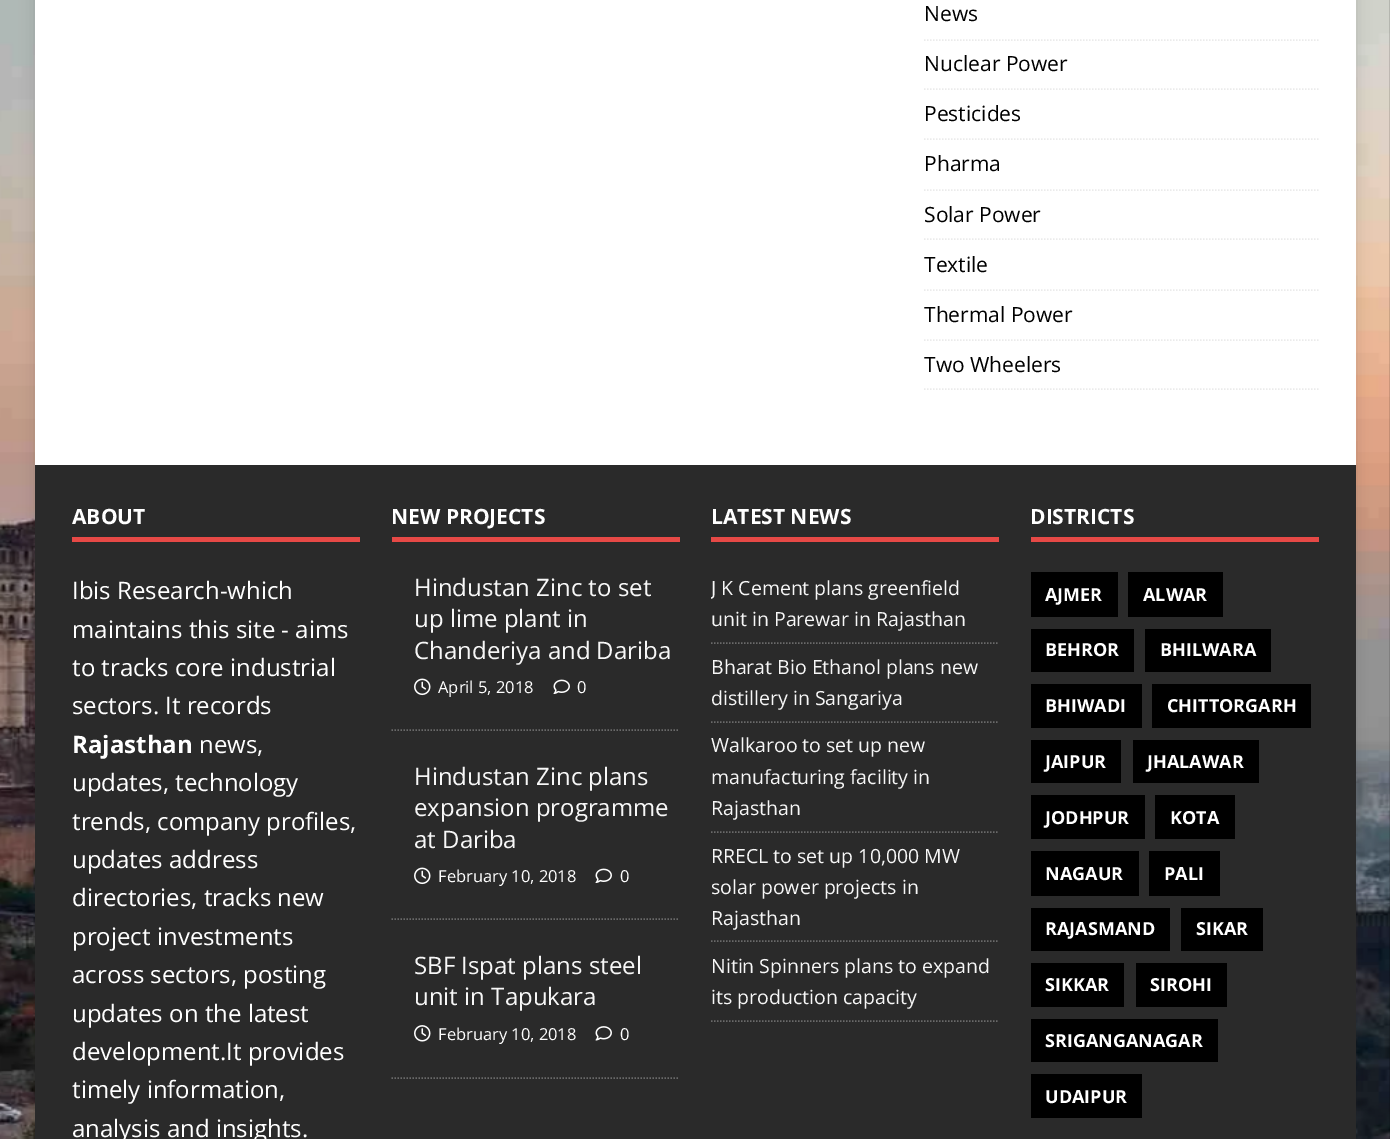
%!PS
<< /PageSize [1390 1139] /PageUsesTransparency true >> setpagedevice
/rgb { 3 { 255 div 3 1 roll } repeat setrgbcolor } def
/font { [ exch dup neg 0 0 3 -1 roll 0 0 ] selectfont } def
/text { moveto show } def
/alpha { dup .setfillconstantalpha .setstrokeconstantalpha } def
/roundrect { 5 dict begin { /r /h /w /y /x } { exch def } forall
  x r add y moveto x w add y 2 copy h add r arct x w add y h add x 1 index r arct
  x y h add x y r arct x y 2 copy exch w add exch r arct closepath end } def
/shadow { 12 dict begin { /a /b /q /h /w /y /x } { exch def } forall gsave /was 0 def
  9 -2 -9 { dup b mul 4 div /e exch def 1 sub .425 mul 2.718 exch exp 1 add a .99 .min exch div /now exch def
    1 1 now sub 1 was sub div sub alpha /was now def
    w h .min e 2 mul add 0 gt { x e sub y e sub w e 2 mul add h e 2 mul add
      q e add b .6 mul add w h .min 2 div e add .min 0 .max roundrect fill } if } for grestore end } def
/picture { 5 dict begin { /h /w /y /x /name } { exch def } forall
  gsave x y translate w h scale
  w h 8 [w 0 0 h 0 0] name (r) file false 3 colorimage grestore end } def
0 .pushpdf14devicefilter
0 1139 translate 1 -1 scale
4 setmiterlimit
255 255 255 rgb
0 0 1390 1139 rectfill
(img_01.rgb) 0 0 1390 1139 picture
50 50 50 rgb
35 -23 1321 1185 0 7.5 0.17 shadow
255 255 255 rgb
35 0 1321 465 rectfill
235 235 235 rgb
1.5 setlinewidth
[1.5 1.5] 0 setdash
924 40 moveto 394.5 0 rlineto stroke
924 89 moveto 394.5 0 rlineto stroke
924 139 moveto 394.5 0 rlineto stroke
924 190 moveto 394.5 0 rlineto stroke
924 239 moveto 394.5 0 rlineto stroke
924 290 moveto 394.5 0 rlineto stroke
924 340 moveto 394.5 0 rlineto stroke
924 389 moveto 394.5 0 rlineto stroke
42 42 42 rgb
35 465 1321 674 rectfill
230 73 70 rgb
72 537 288 5 rectfill
392 537 288 5 rectfill
106 106 106 rgb
391.5 730 moveto 288 0 rlineto stroke
(img_02.rgb) 414 678 17 18 picture
(img_03.rgb) 553 679 17 15 picture
391.5 919 moveto 288 0 rlineto stroke
(img_02.rgb) 414 867 17 18 picture
(img_03.rgb) 595 868 17 15 picture
391.5 1078 moveto 288 0 rlineto stroke
(img_04.rgb) 414 1025 17 17 picture
(img_05.rgb) 595 1026 17 15 picture
230 73 70 rgb
711 537 288 5 rectfill
106 106 106 rgb
711 643 moveto 288 0 rlineto stroke
711 722 moveto 288 0 rlineto stroke
711 832 moveto 288 0 rlineto stroke
711 941 moveto 288 0 rlineto stroke
711 1021 moveto 288 0 rlineto stroke
230 73 70 rgb
1031 537 288 5 rectfill
0 0 0 rgb
1031 572 87 45 rectfill
1128 572 95 45 rectfill
1031 629 103 43 rectfill
1145 629 126 43 rectfill
1031 684 111 44 rectfill
1152 684 159 44 rectfill
1031 740 90 43 rectfill
1133 740 126 43 rectfill
1031 795 114 44 rectfill
1155 795 80 44 rectfill
1031 851 108 45 rectfill
1149 851 71 45 rectfill
1031 908 139 43 rectfill
1181 908 82 43 rectfill
1031 963 93 44 rectfill
1136 963 91 44 rectfill
1031 1019 187 43 rectfill
1031 1074 111 44 rectfill
/OpenSans-Regular 21 font
(News) 924 21 text
(Nuclear Power) 924 71 text
(Pesticides) 924 121 text
(Pharma) 924 171 text
(Solar Power) 924 222 text
(Textile) 924 272 text
(Thermal Power) 924 322 text
(Two Wheelers) 924 372 text
/OpenSans-Bold 21 font
255 255 255 rgb
(ABOUT) 72 524 text
/OpenSans-Regular 24 font
(Ibis Research-which) 72 599 text
(maintains this site - aims) 72 638 text
(to tracks core industrial) 72 676 text
(sectors. It records) 72 714 text
/OpenSans-Bold 24 font
(Rajasthan) 72 753 text
/OpenSans-Regular 24 font
(news,) 199 753 text
(updates, technology) 72 791 text
(trends, company profiles,) 72 830 text
(updates address) 72 868 text
(directories, tracks new) 72 906 text
(project investments) 72 945 text
(across sectors, posting) 72 983 text
(updates on the latest) 72 1022 text
(development.It provides) 72 1060 text
(timely information,) 72 1098 text
(analysis and insights.) 72 1137 text
/OpenSans-Bold 21 font
(NEW PROJECTS) 391 524 text
/OpenSans-Regular 24 font
247 247 247 rgb
(Hindustan Zinc to set) 414 596 text
(up lime plant in) 414 627 text
(Chanderiya and Dariba) 414 659 text
/OpenSans-Regular 16.5 font
255 255 255 rgb
(April 5, 2018) 438 693 text
(0) 577 693 text
/OpenSans-Regular 24 font
247 247 247 rgb
(Hindustan Zinc plans) 414 785 text
(expansion programme) 414 816 text
(at Dariba) 414 848 text
/OpenSans-Regular 16.5 font
255 255 255 rgb
(February 10, 2018) 438 882 text
(0) 620 882 text
/OpenSans-Regular 24 font
247 247 247 rgb
(SBF Ispat plans steel) 414 974 text
(unit in Tapukara) 414 1005 text
/OpenSans-Regular 16.5 font
255 255 255 rgb
(February 10, 2018) 438 1040 text
(0) 620 1040 text
/OpenSans-Bold 21 font
(LATEST NEWS) 711 524 text
gsave
711 503 288 519 rectclip
/OpenSans-Regular 19.5 font
247 247 247 rgb
(J K Cement plans greenfield) 711 595 text
grestore
/OpenSans-Regular 19.5 font
247 247 247 rgb
(unit in Parewar in Rajasthan) 711 626 text
(Bharat Bio Ethanol plans new) 711 674 text
(distillery in Sangariya) 711 705 text
(Walkaroo to set up new) 711 752 text
(manufacturing facility in) 711 784 text
(Rajasthan) 711 815 text
(RRECL to set up 10,000 MW) 711 863 text
(solar power projects in) 711 894 text
(Rajasthan) 711 925 text
(Nitin Spinners plans to expand) 711 973 text
(its production capacity) 711 1004 text
/OpenSans-Bold 21 font
255 255 255 rgb
(DISTRICTS) 1030 524 text
/OpenSans-Bold 18 font
(AJMER) 1045 601 text
(ALWAR) 1143 601 text
(BEHROR) 1045 656 text
(BHILWARA) 1160 656 text
(BHIWADI) 1045 712 text
(CHITTORGARH) 1167 712 text
(JAIPUR) 1045 768 text
(JHALAWAR) 1147 768 text
(JODHPUR) 1045 824 text
(KOTA) 1170 824 text
(NAGAUR) 1045 880 text
(PALI) 1164 880 text
(RAJASMAND) 1045 935 text
(SIKAR) 1196 935 text
(SIKKAR) 1045 991 text
(SIROHI) 1150 991 text
(SRIGANGANAGAR) 1045 1047 text
(UDAIPUR) 1045 1103 text
.poppdf14devicefilter showpage
